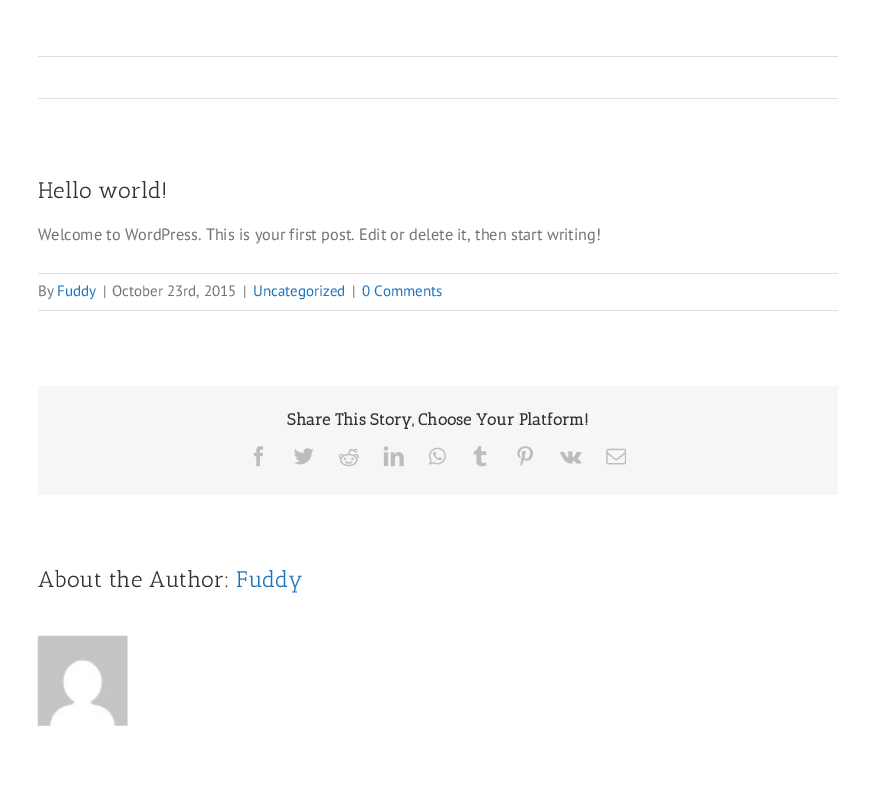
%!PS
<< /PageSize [875 788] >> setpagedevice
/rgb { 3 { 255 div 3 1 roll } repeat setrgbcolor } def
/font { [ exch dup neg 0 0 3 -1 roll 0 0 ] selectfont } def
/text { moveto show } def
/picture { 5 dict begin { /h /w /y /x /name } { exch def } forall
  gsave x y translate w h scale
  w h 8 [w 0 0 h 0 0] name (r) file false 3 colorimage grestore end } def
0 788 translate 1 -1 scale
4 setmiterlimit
255 255 255 rgb
0 0 875 788 rectfill
224 222 222 rgb
38 56 800 1 rectfill
38 98 800 1 rectfill
38 273 800 1 rectfill
38 310 800 1 rectfill
246 246 246 rgb
38 386 800 109 rectfill
(img_01.rgb) 253 446 11 21 picture
(img_02.rgb) 294 448 20 17 picture
(img_03.rgb) 338 448 21 19 picture
(img_04.rgb) 383 446 21 21 picture
(img_05.rgb) 428 447 18 18 picture
(img_06.rgb) 473 446 14 21 picture
(img_07.rgb) 517 446 16 20 picture
(img_08.rgb) 560 451 22 13 picture
(img_09.rgb) 606 448 20 17 picture
(img_10.rgb) 37 635 91 91 picture
/AnticSlab-Regular 22.5 font
51 51 51 rgb
(Hello world!) 38 198 text
/PTSans-Regular 16.25 font
116 116 116 rgb
(Welcome to WordPress. This is your first post. Edit or delete it, then start writing!) 38 240 text
/PTSans-Regular 15 font
(By) 38 296 text
30 115 190 rgb
(Fuddy) 57 296 text
116 116 116 rgb
(|) 103 296 text
(October 23rd, 2015) 112 296 text
(|) 243 296 text
30 115 190 rgb
(Uncategorized) 253 296 text
116 116 116 rgb
(|) 352 296 text
30 115 190 rgb
(0 Comments) 362 296 text
/AnticSlab-Bold 16.25 font
51 51 51 rgb
(Share This Story, Choose Your Platform!) 287 425 text
/AnticSlab-Regular 22.5 font
(About the Author:) 38 587 text
30 115 190 rgb
(Fuddy) 236 587 text
showpage
